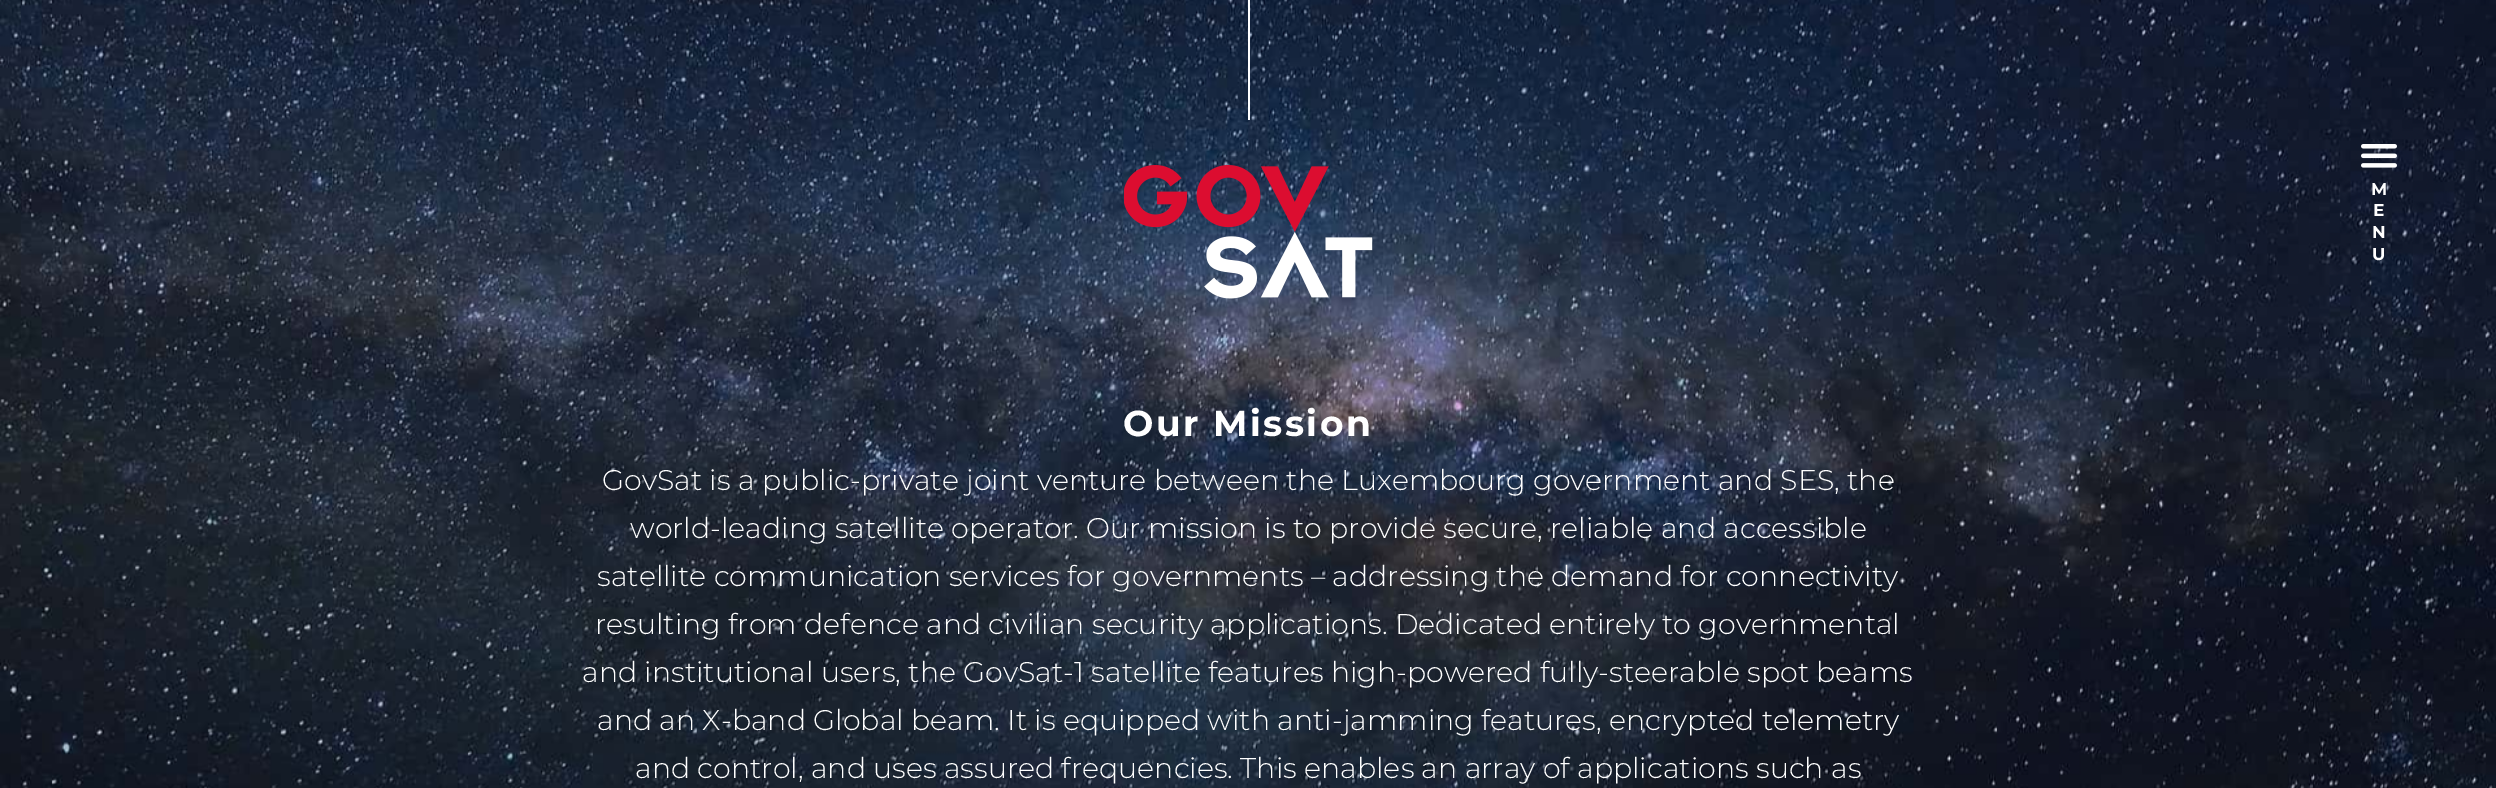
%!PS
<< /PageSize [2496 788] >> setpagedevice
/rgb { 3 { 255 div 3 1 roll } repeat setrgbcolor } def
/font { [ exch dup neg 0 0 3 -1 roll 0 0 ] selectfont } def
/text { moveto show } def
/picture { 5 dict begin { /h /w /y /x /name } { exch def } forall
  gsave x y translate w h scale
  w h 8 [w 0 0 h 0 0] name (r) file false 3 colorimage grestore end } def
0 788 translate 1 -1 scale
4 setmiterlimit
255 255 255 rgb
0 0 2496 788 rectfill
(img_01.rgb) 0 0 2496 788 picture
1248 0 2 120 rectfill
(img_02.rgb) 1124 165 249 134 picture
(img_03.rgb) 2361 144 36 24 picture
(img_04.rgb) 0 787 2496 1 picture
/Montserrat-Bold 17 font
(M) 2371 195 text
(E) 2373 216 text
(N) 2372 238 text
(U) 2372 260 text
/Montserrat-Bold 36 font
1123 436 moveto 2.4 0 (Our Mission) ashow
/Montserrat-Light 28.5 font
(GovSat is a public-private joint venture between the Luxembourg government and SES, the) 602 490 text
(world-leading satellite operator. Our mission is to provide secure, reliable and accessible) 630 538 text
(satellite communication services for governments – addressing the demand for connectivity) 597 586 text
(resulting from defence and civilian security applications. Dedicated entirely to governmental) 595 634 text
(and institutional users, the GovSat-1 satellite features high-powered fully-steerable spot beams) 582 682 text
(and an X-band Global beam. It is equipped with anti-jamming features, encrypted telemetry) 597 730 text
(and control, and uses assured frequencies. This enables an array of applications such as) 635 778 text
showpage
